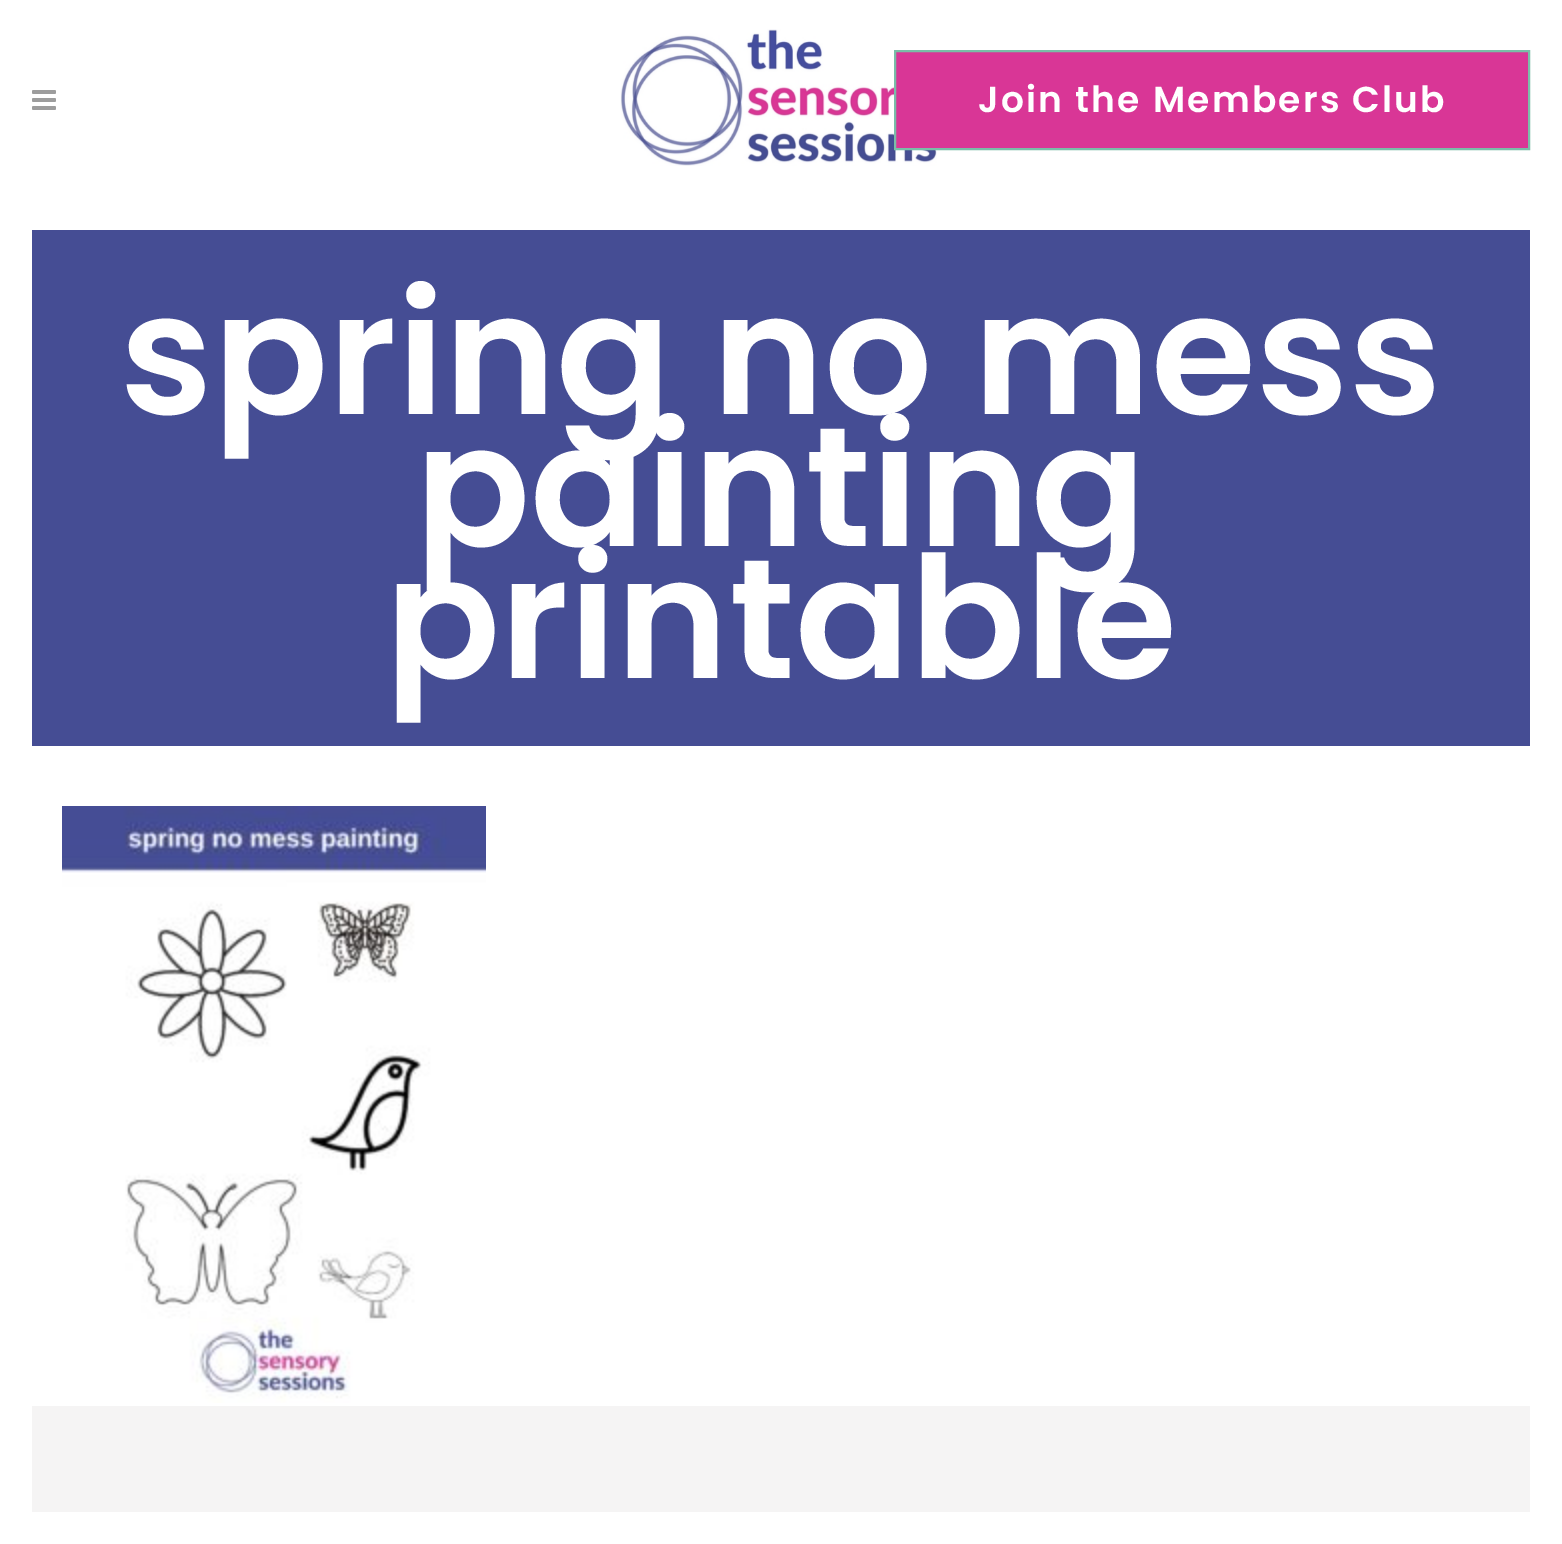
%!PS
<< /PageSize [1562 1544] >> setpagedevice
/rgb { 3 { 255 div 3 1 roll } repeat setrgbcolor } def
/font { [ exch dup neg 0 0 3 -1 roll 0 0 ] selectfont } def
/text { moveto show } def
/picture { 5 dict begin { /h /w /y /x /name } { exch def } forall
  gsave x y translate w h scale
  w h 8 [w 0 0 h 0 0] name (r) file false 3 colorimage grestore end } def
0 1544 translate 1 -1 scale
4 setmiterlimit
255 255 255 rgb
0 0 1562 1544 rectfill
(img_01.rgb) 32 90 24 20 picture
(img_02.rgb) 620 29 317 137 picture
217 54 150 rgb
895 51 moveto 634 0 rlineto 0 98 rlineto -634 0 rlineto closepath gsave fill grestore
121 190 168 rgb
2 setlinewidth
stroke
69 77 148 rgb
32 230 1498 516 rectfill
(img_03.rgb) 62 806 424 597 picture
245 244 244 rgb
32 1406 1498 106 rectfill
/Poppins-SemiBold 36 font
255 255 255 rgb
978 112 moveto 2.25 0 (Join the Members Club) ashow
/Poppins-SemiBold 170 font
(spring no mess) 120 414 text
(painting) 415 546 text
(printable) 385 678 text
showpage
